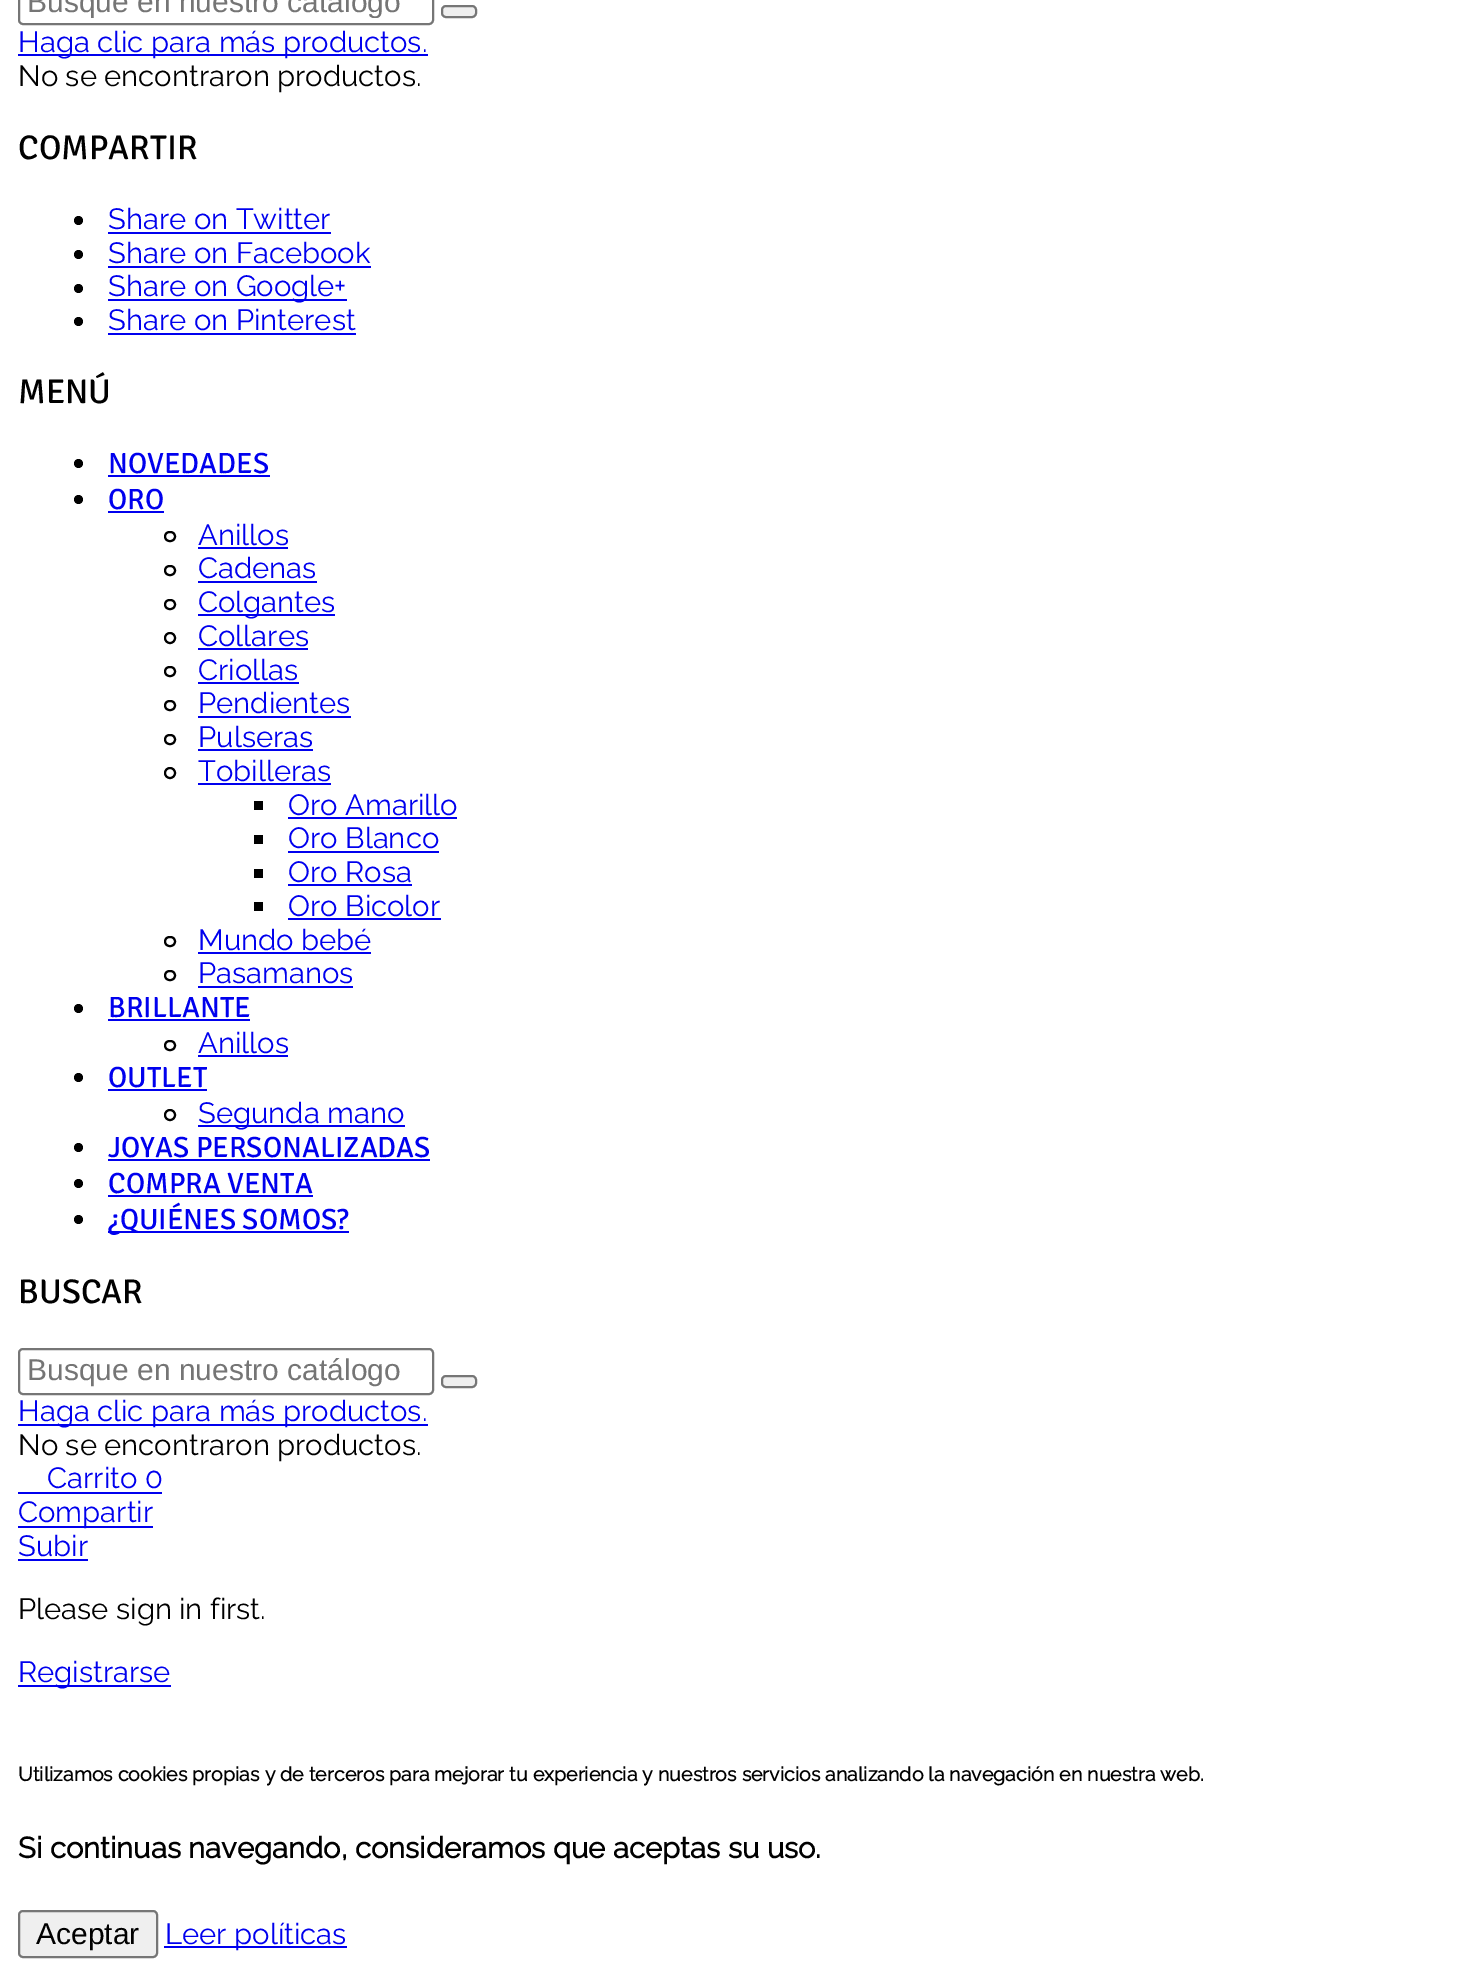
%!PS
<< /PageSize [1473 1975] >> setpagedevice
/rgb { 3 { 255 div 3 1 roll } repeat setrgbcolor } def
/font { [ exch dup neg 0 0 3 -1 roll 0 0 ] selectfont } def
/text { moveto show } def
/circle { newpath 0 360 arc closepath } def
/roundrect { 5 dict begin { /r /h /w /y /x } { exch def } forall
  x r add y moveto x w add y 2 copy h add r arct x w add y h add x 1 index r arct
  x y h add x y r arct x y 2 copy exch w add exch r arct closepath end } def
0 1975 translate 1 -1 scale
4 setmiterlimit
255 255 255 rgb
0 0 1473 1975 rectfill
118 118 118 rgb
2 setlinewidth
19 -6 414 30 4 roundrect stroke
239 239 239 rgb
442 6 34 11 4 roundrect gsave fill grestore
118 118 118 rgb
stroke
0 0 238 rgb
18 54 410 2 rectfill
0 0 0 rgb
78.5 220.5 4.5 circle fill
0 0 238 rgb
108 232 223 2 rectfill
0 0 0 rgb
78.5 254.5 4.5 circle fill
0 0 238 rgb
108 266 263 2 rectfill
0 0 0 rgb
78.5 288.5 4.5 circle fill
0 0 238 rgb
108 299 239 2 rectfill
0 0 0 rgb
78.5 321.5 4.5 circle fill
0 0 238 rgb
108 333 248 2 rectfill
0 0 0 rgb
78.5 463.5 4.5 circle fill
0 0 238 rgb
108 475 162 2 rectfill
0 0 0 rgb
78.5 499.5 4.5 circle fill
0 0 238 rgb
108 511 56 2 rectfill
0 0 0 rgb
165 532 10 9 4.5 roundrect stroke
0 0 238 rgb
198 547 90 2 rectfill
0 0 0 rgb
165 566 10 9 4.5 roundrect stroke
0 0 238 rgb
198 581 119 2 rectfill
0 0 0 rgb
165 600 10 9 4.5 roundrect stroke
0 0 238 rgb
198 614 137 2 rectfill
0 0 0 rgb
170 638 5 circle stroke
0 0 238 rgb
198 648 110 2 rectfill
0 0 0 rgb
165 667 10 9 4.5 roundrect stroke
0 0 238 rgb
198 682 101 2 rectfill
0 0 0 rgb
165 701 10 9 4.5 roundrect stroke
0 0 238 rgb
198 716 153 2 rectfill
0 0 0 rgb
165 735 10 9 4.5 roundrect stroke
0 0 238 rgb
198 749 115 2 rectfill
0 0 0 rgb
170 773 5 circle stroke
0 0 238 rgb
198 783 133 2 rectfill
0 0 0 rgb
254 801 9 9 rectfill
0 0 238 rgb
288 817 169 2 rectfill
0 0 0 rgb
254 835 9 9 rectfill
0 0 238 rgb
288 851 151 2 rectfill
0 0 0 rgb
254 869 9 9 rectfill
0 0 238 rgb
288 884 124 2 rectfill
0 0 0 rgb
254 902 9 9 rectfill
0 0 238 rgb
288 918 153 2 rectfill
0 0 0 rgb
165 937 10 9 4.5 roundrect stroke
0 0 238 rgb
198 952 173 2 rectfill
0 0 0 rgb
165 971 10 9 4.5 roundrect stroke
0 0 238 rgb
198 986 155 2 rectfill
0 0 0 rgb
78.5 1008.5 4.5 circle fill
0 0 238 rgb
108 1019 142 2 rectfill
0 0 0 rgb
165 1041 10 9 4.5 roundrect stroke
0 0 238 rgb
198 1055 90 2 rectfill
0 0 0 rgb
78.5 1077.5 4.5 circle fill
0 0 238 rgb
108 1089 99 2 rectfill
0 0 0 rgb
170 1115 5 circle stroke
0 0 238 rgb
198 1125 207 2 rectfill
0 0 0 rgb
78.5 1147.5 4.5 circle fill
0 0 238 rgb
108 1159 322 2 rectfill
0 0 0 rgb
78.5 1183.5 4.5 circle fill
0 0 238 rgb
108 1195 205 2 rectfill
0 0 0 rgb
78.5 1219.5 4.5 circle fill
0 0 238 rgb
108 1231 241 2 rectfill
118 118 118 rgb
19 1349 414 45 4 roundrect stroke
239 239 239 rgb
442 1376 34 11 4 roundrect gsave fill grestore
118 118 118 rgb
stroke
0 0 238 rgb
18 1424 410 2 rectfill
18 1492 144 2 rectfill
18 1526 135 2 rectfill
18 1559 70 2 rectfill
18 1685 153 2 rectfill
239 239 239 rgb
19 1911 138 46 4 roundrect gsave fill grestore
118 118 118 rgb
stroke
0 0 238 rgb
164 1946 183 2 rectfill
gsave
27 0 398 18 rectclip
/LiberationSans-Regular 30 font
117 117 117 rgb
(Busque en nuestro catálogo) 27 12 text
grestore
/Raleway-Thin 29.25 font
(Haga clic para más productos.) 18 52 text
0 0 0 rgb
(No se encontraron productos.) 18 86 text
/Signika-Regular 34.25 font
(COMPARTIR) 18 159 text
/Raleway-Thin 29.25 font
0 0 238 rgb
(Share on Twitter) 108 229 text
(Share on Facebook) 108 263 text
(Share on Google+) 108 296 text
(Share on Pinterest) 108 330 text
/Signika-Regular 34.25 font
0 0 0 rgb
(MENÚ) 18 403 text
/Signika-Regular 29.25 font
0 0 238 rgb
(NOVEDADES) 108 473 text
(ORO) 108 509 text
/Raleway-Thin 29.25 font
(Anillos) 198 545 text
(Cadenas) 198 578 text
(Colgantes) 198 612 text
(Collares) 198 646 text
(Criollas) 198 680 text
(Pendientes) 198 713 text
(Pulseras) 198 747 text
(Tobilleras) 198 781 text
(Oro Amarillo) 288 815 text
(Oro Blanco) 288 848 text
(Oro Rosa) 288 882 text
(Oro Bicolor) 288 916 text
(Mundo bebé) 198 950 text
(Pasamanos) 198 983 text
/Signika-Regular 29.25 font
(BRILLANTE) 108 1017 text
/Raleway-Thin 29.25 font
(Anillos) 198 1053 text
/Signika-Regular 29.25 font
(OUTLET) 108 1087 text
/Raleway-Thin 29.25 font
(Segunda mano) 198 1123 text
/Signika-Regular 29.25 font
(JOYAS PERSONALIZADAS) 108 1157 text
(COMPRA VENTA) 108 1193 text
(¿QUIÉNES SOMOS?) 108 1229 text
/Signika-Regular 34.25 font
0 0 0 rgb
(BUSCAR) 18 1303 text
/LiberationSans-Regular 30 font
117 117 117 rgb
(Busque en nuestro catálogo) 27 1380 text
/Raleway-Thin 29.25 font
0 0 238 rgb
(Haga clic para más productos.) 18 1421 text
0 0 0 rgb
(No se encontraron productos.) 18 1455 text
0 0 238 rgb
(Carrito 0) 47 1488 text
(Compartir) 18 1522 text
(Subir) 18 1556 text
0 0 0 rgb
(Please sign in first.) 18 1619 text
0 0 238 rgb
(Registrarse) 18 1682 text
/Raleway-Bold 19.6 font
0 0 0 rgb
(Utilizamos cookies propias y de terceros para mejorar tu experiencia y nuestros servicios analizando la navegación en nuestra web.) 18 1781 text
/Raleway-Bold 29.25 font
(Si continuas navegando, consideramos que aceptas su uso.) 18 1858 text
/LiberationSans-Regular 30 font
(Aceptar) 36 1944 text
/Raleway-Thin 29.25 font
0 0 238 rgb
(Leer políticas) 165 1944 text
showpage
